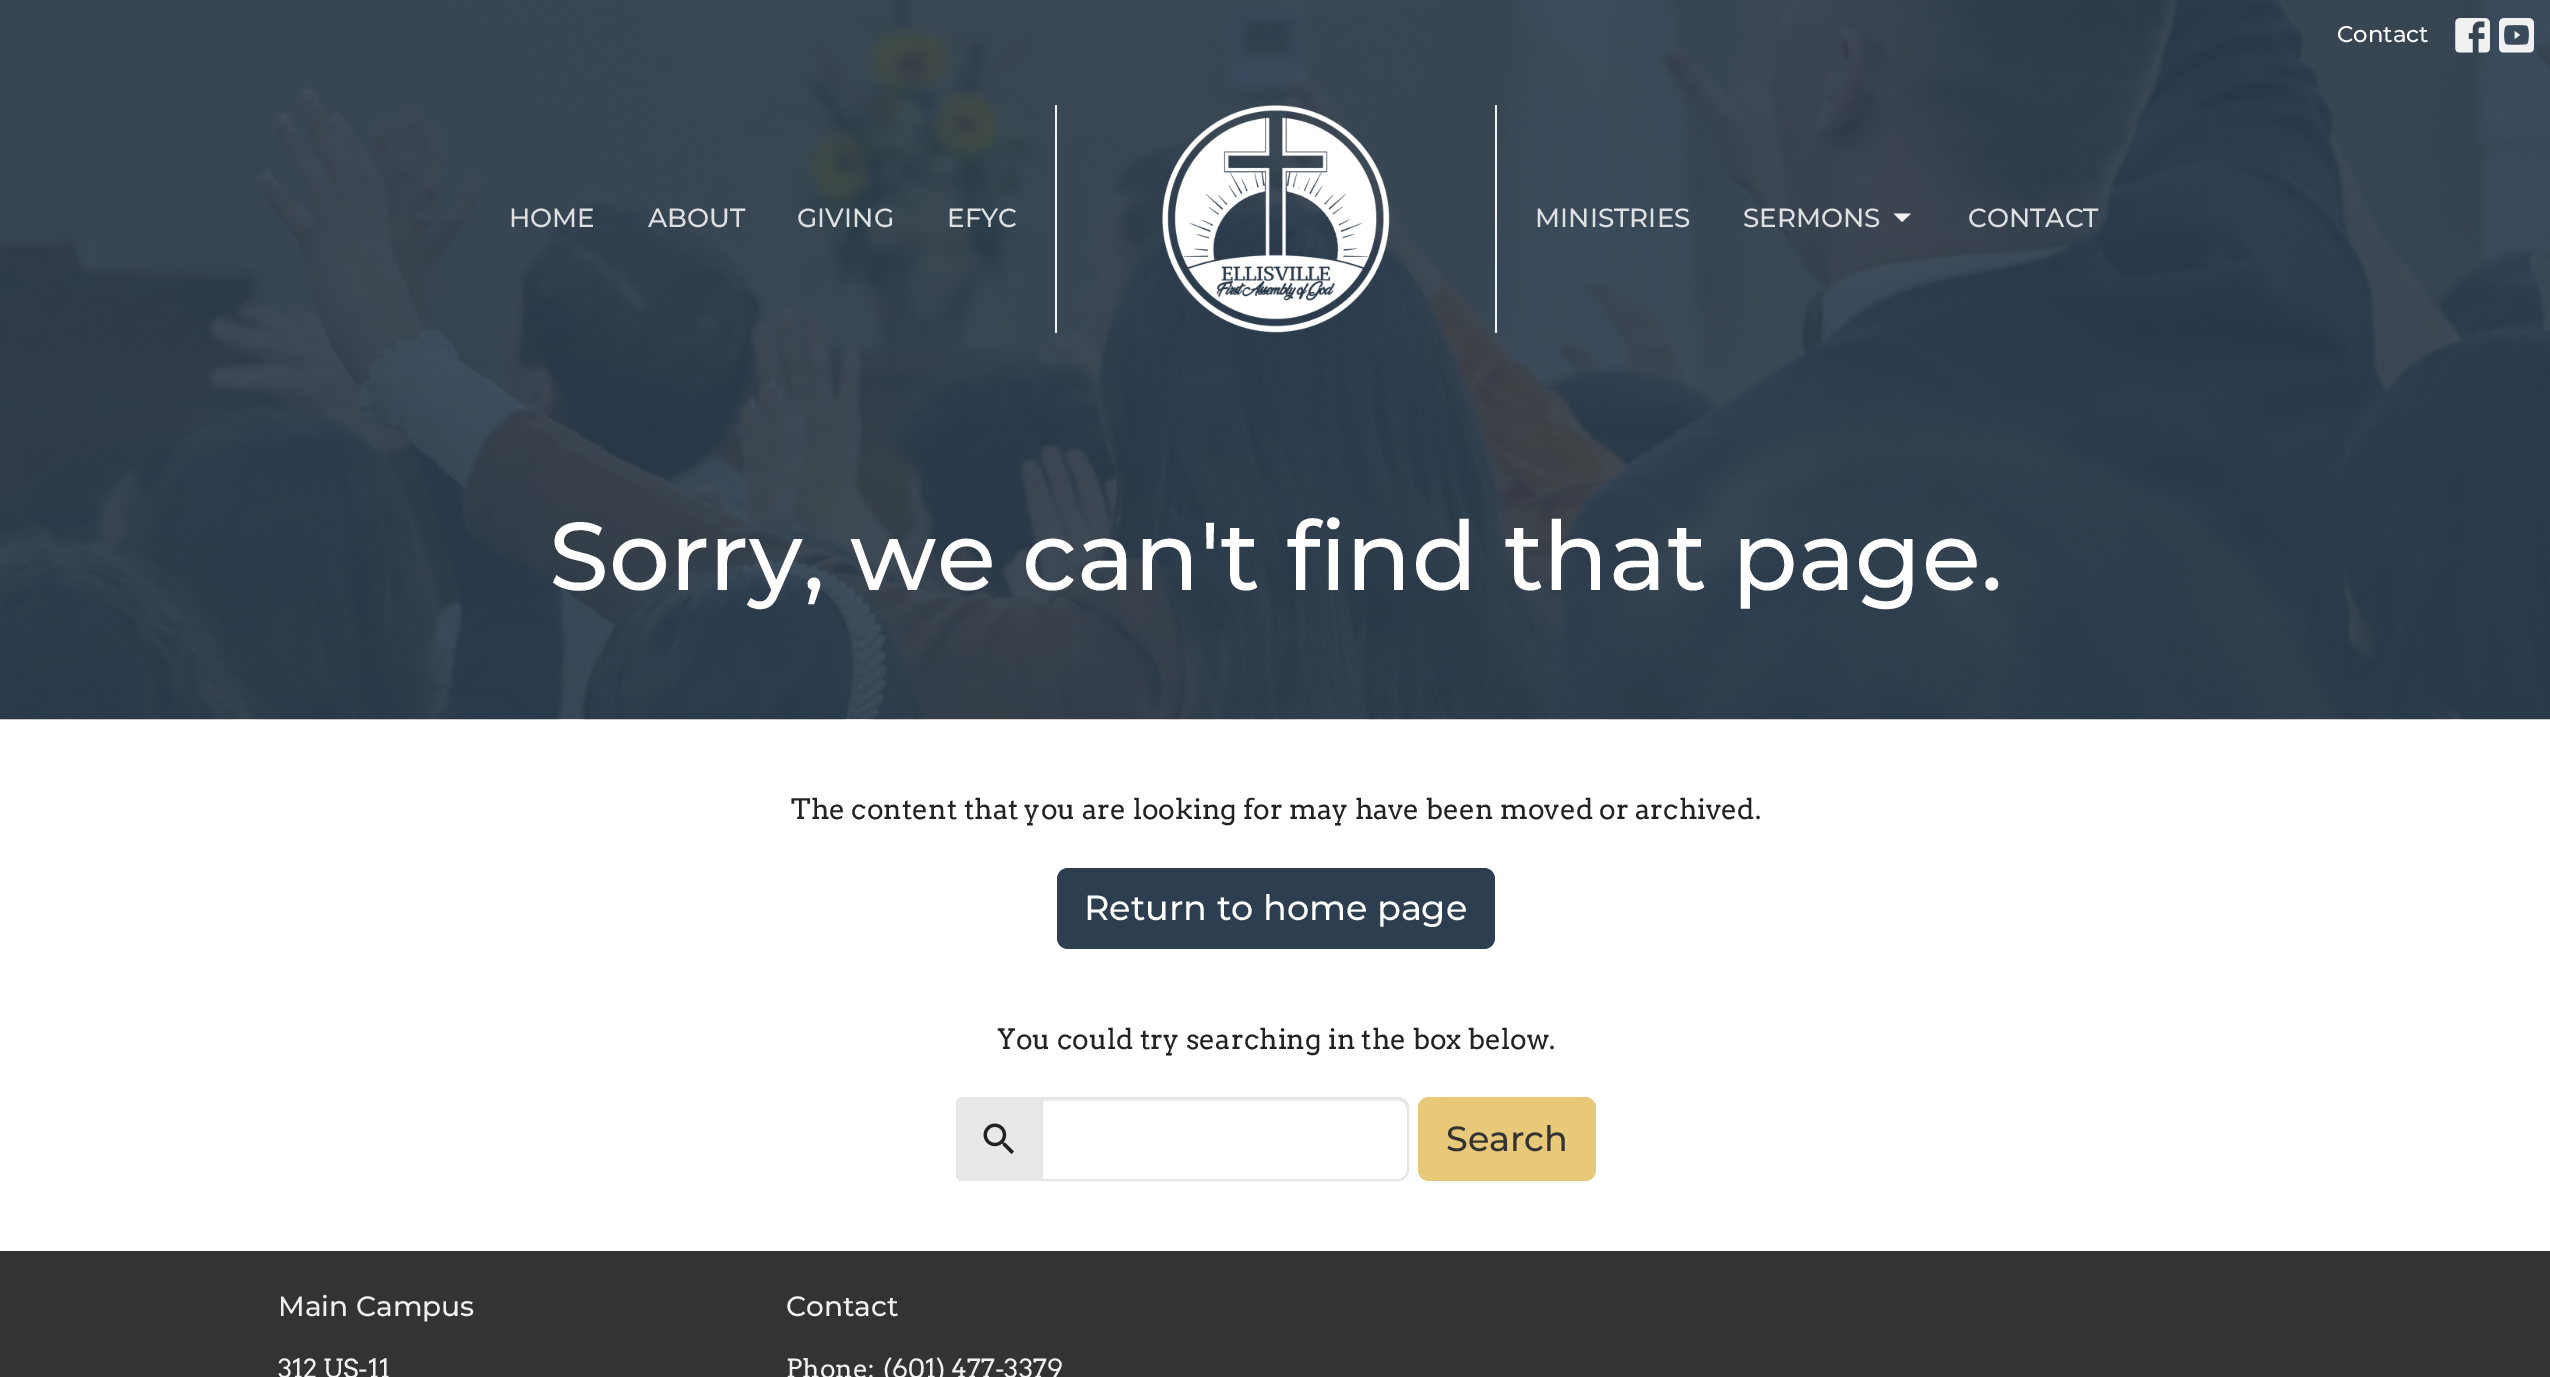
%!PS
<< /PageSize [2550 1377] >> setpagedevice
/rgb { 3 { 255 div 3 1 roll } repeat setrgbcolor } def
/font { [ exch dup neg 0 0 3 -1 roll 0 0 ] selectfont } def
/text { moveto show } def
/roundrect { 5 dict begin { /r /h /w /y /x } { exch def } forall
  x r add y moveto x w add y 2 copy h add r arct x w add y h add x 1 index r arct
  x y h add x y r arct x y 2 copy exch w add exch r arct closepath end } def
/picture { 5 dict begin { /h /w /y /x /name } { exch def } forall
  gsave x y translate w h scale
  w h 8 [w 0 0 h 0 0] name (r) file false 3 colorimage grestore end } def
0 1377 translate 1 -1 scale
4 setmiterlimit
255 255 255 rgb
0 0 2550 1377 rectfill
(img_04.rgb) 0 0 2550 720 picture
(img_01.rgb) 2455 18 35 35 picture
(img_02.rgb) 2499 18 35 35 picture
241 241 241 rgb
1495 105 2 228 rectfill
1055 105 2 228 rectfill
(img_03.rgb) 1162 105 228 228 picture
1893.5 213.5 moveto 8.5 8.5 rlineto 9 -8.5 rlineto closepath fill
44 62 80 rgb
1057 868 438 81 11 roundrect fill
232 232 232 rgb
963 1097 moveto 78 0 rlineto 0 84 rlineto -78 0 rlineto -4 0 -7 -3 -7 -7 rcurveto 0 -70 rlineto 0 -4 3 -7 7 -7 rcurveto closepath fill
230 230 230 rgb
962 1097 moveto 79 0 rlineto 0 84 rlineto -79 0 rlineto -3 0 -6 -3 -6 -7 rcurveto 0 -70 rlineto 0 -4 3 -7 6 -7 rcurveto closepath 962 1099 moveto 79 0 rlineto 0 81 rlineto -79 0 rlineto -2 0 -5 -3 -5 -6 rcurveto 0 -70 rlineto 0 -3 3 -5 5 -5 rcurveto closepath eofill
(img_05.rgb) 983 1123 31 31 picture
236 236 236 rgb
1043 1101 moveto 355 0 rlineto 5 0 9 4 9 9 rcurveto 0 -5 -2 -10 -7 -11 rcurveto -357 0 rlineto closepath fill
230 230 230 rgb
2 setlinewidth
1042 1098 moveto 356 0 rlineto 5.5 0 10 4.5 10 10 rcurveto 0 62 rlineto 0 5.5 -4.5 10 -10 10 rcurveto -356 0 rlineto closepath stroke
232 201 122 rgb
1418 1097 178 84 11 roundrect fill
51 51 51 rgb
0 1251 2550 126 rectfill
/Montserrat-Medium 22.75 font
255 255 255 rgb
(Contact) 2337 42 text
/Montserrat-Medium 26.25 font
222 224 225 rgb
(HOME) 509 227 text
(ABOUT) 648 227 text
(GIVING) 797 227 text
(EFYC) 947 227 text
(MINISTRIES) 1535 227 text
(SERMONS) 1743 227 text
(CONTACT) 1968 227 text
/Montserrat-Medium 96.25 font
255 255 255 rgb
(Sorry, we can't find that page.) 549 590 text
/Arvo-Regular 28 font
34 34 34 rgb
(The content that you are looking for may have been moved or archived.) 791 819 text
/Montserrat-Medium 35 font
255 255 255 rgb
(Return to home page) 1084 920 text
/Arvo-Regular 28 font
34 34 34 rgb
(You could try searching in the box below.) 997 1049 text
/Montserrat-Medium 35 font
51 51 51 rgb
(Search) 1446 1151 text
/Montserrat-Medium 28 font
241 241 241 rgb
(Main Campus) 278 1316 text
/Arvo-Regular 26.25 font
(312 US-11) 278 1378 text
/Montserrat-Medium 28 font
(Contact) 786 1316 text
/Arvo-Regular 26.25 font
(Phone:) 786 1378 text
(\(601\) 477-3379) 883 1378 text
showpage
